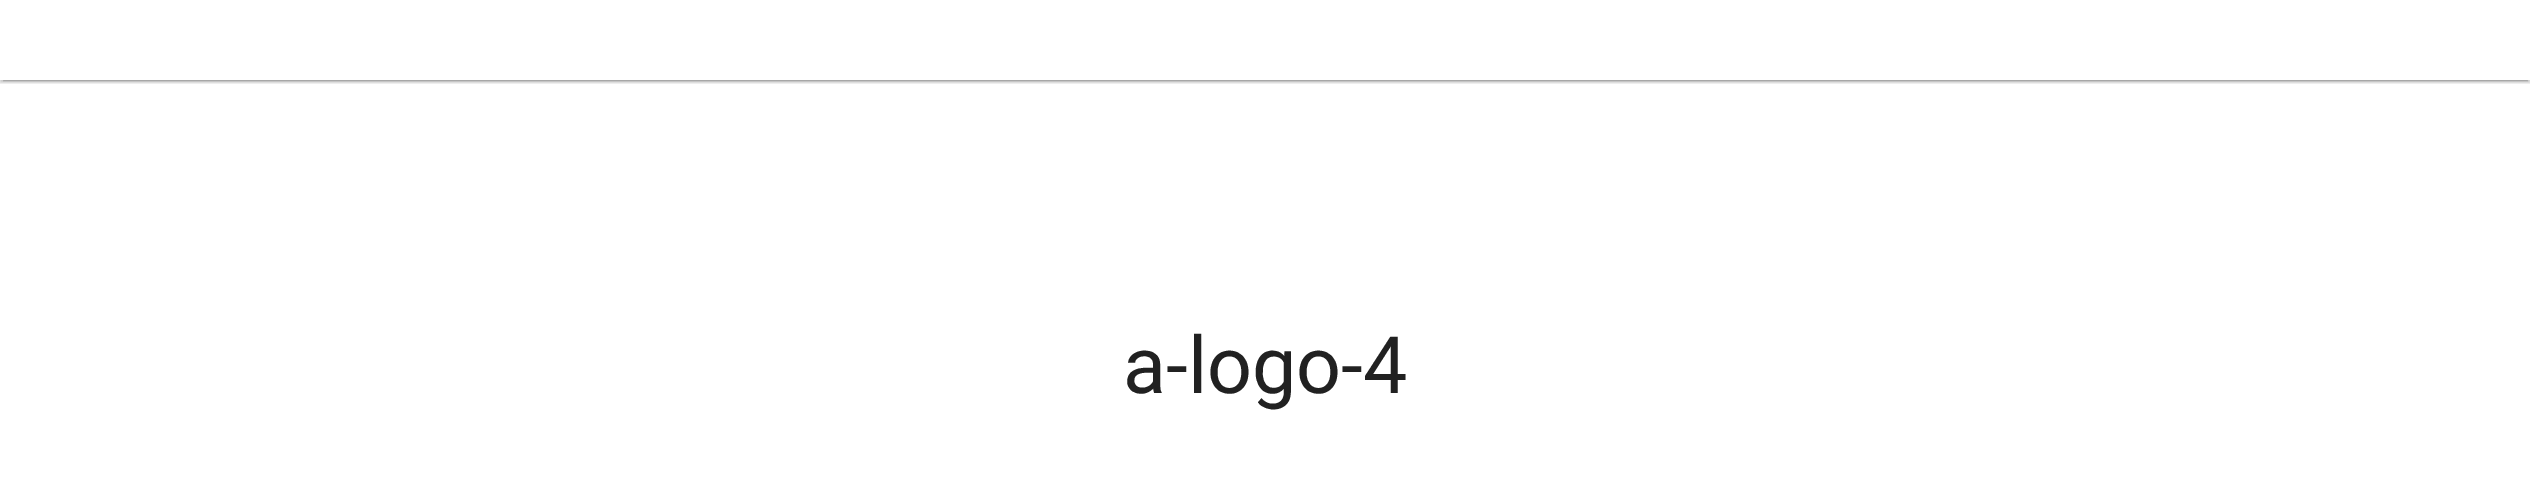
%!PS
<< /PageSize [2530 498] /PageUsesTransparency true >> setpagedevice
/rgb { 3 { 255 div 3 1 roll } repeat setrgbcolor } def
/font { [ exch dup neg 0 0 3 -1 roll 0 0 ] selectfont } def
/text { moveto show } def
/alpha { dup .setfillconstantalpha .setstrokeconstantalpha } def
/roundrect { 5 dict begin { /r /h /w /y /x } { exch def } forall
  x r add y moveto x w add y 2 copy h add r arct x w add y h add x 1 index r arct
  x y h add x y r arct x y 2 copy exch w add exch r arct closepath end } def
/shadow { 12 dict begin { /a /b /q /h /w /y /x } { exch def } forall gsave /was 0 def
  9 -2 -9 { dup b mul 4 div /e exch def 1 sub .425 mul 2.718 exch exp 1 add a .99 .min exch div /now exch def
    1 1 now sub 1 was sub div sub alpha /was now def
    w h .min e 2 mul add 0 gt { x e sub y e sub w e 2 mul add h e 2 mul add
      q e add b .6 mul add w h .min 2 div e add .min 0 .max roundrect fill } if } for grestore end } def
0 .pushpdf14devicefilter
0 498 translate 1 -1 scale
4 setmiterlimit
255 255 255 rgb
0 0 2530 498 rectfill
gsave
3 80 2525 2 rectclip
0 0 0 rgb
3 6 2525 75 0 0.5 0.2 shadow
grestore
gsave
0 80 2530 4 rectclip
0 0 0 rgb
0 1 2530 80 0 3 0.12 shadow
0 3 2530 80 0 1 0.14 shadow
grestore
/Roboto-Regular 79 font
33 33 33 rgb
(a-logo-4) 1123 393 text
.poppdf14devicefilter showpage
